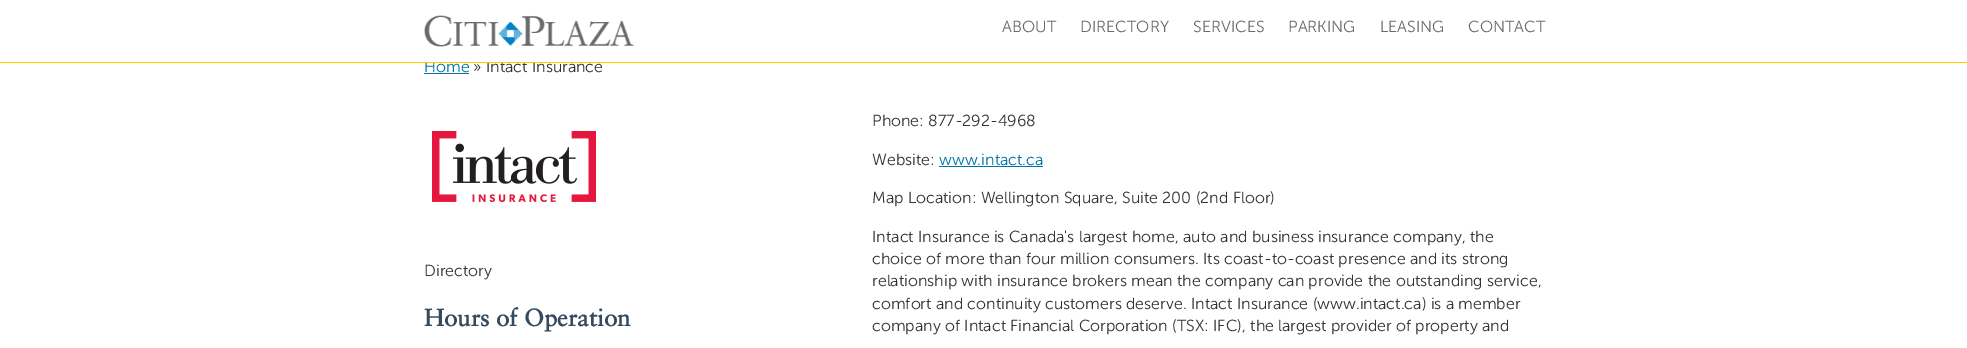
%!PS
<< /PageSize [1967 348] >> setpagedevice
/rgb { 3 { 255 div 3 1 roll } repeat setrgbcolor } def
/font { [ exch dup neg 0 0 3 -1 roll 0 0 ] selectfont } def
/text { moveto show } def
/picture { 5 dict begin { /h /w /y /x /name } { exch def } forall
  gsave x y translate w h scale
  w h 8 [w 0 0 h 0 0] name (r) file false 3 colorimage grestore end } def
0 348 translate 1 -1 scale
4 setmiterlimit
255 255 255 rgb
0 0 1967 348 rectfill
(img_01.rgb) 424 15 210 32 picture
0 115 170 rgb
424 73 45 1 rectfill
(img_02.rgb) 432 131 164 71 picture
939 166 104 1 rectfill
/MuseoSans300-Light 16 font
106 106 109 rgb
(ABOUT) 1002 32 text
(DIRECTORY) 1080 32 text
(SERVICES) 1193 32 text
(PARKING) 1288 32 text
(LEASING) 1380 32 text
(CONTACT) 1468 32 text
0 115 170 rgb
(Home) 424 72 text
51 51 51 rgb
(» Intact Insurance) 473 72 text
255 204 0 rgb
0 62 1967 1 rectfill
255 255 255 rgb
425 60 110 2 rectfill
51 51 51 rgb
(Directory) 424 276 text
/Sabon-Bold 24 font
54 74 95 rgb
(Hours of Operation) 424 326 text
/MuseoSans300-Light 16 font
51 51 51 rgb
(Phone: 877-292-4968) 872 126 text
(Website:) 872 165 text
0 115 170 rgb
(www.intact.ca) 939 165 text
51 51 51 rgb
(Map Location: Wellington Square, Suite 200 \(2nd Floor\)) 872 203 text
(Intact Insurance is Canada's largest home, auto and business insurance company, the) 872 242 text
(choice of more than four million consumers. Its coast-to-coast presence and its strong) 872 264 text
(relationship with insurance brokers mean the company can provide the outstanding service,) 872 286 text
(comfort and continuity customers deserve. Intact Insurance \(www.intact.ca\) is a member) 872 309 text
(company of Intact Financial Corporation \(TSX: IFC\), the largest provider of property and) 872 331 text
showpage
